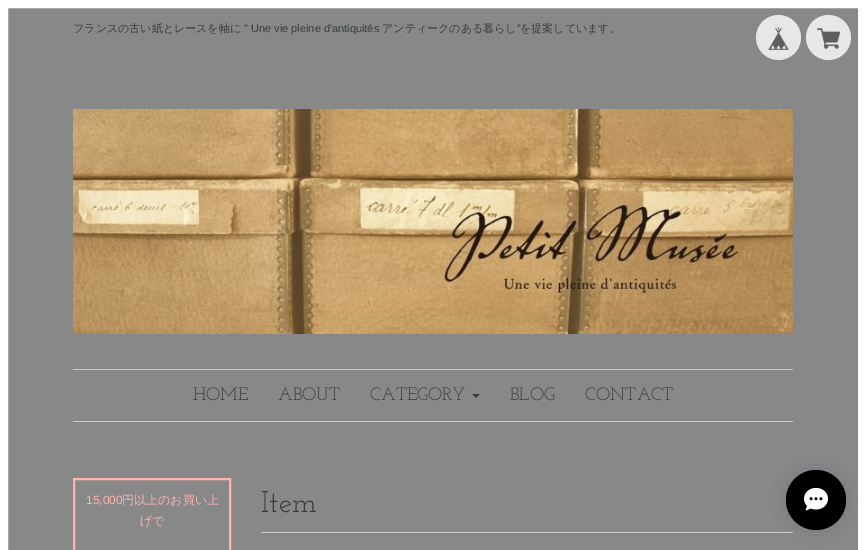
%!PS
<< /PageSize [866 550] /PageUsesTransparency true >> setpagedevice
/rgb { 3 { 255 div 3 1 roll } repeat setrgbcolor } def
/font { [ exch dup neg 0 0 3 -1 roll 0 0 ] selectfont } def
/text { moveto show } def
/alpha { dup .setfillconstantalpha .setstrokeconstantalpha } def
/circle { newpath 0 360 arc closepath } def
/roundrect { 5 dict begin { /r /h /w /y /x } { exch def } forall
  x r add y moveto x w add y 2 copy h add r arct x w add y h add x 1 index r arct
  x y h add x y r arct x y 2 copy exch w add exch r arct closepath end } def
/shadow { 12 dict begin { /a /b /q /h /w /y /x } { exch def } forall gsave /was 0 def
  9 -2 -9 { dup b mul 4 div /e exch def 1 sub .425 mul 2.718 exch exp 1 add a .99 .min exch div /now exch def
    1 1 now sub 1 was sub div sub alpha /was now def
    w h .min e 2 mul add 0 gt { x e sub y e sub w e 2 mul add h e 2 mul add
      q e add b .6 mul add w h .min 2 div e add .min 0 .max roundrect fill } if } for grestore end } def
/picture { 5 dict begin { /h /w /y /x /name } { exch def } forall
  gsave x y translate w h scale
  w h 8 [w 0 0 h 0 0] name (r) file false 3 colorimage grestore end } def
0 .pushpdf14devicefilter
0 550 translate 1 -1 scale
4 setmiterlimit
136 136 136 rgb
0 0 866 550 rectfill
255 255 255 rgb
8 setlinewidth
4 4 858 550 rectstroke
(img_01.rgb) 73 109 720 225 picture
204 204 204 rgb
73 369 720 1 rectfill
73 421 720 1 rectfill
54 61 57 rgb
472 394 moveto 8 0 rlineto -4 4 rlineto closepath fill
231 231 231 rgb
778.5 37.5 22.5 circle fill
(img_02.rgb) 768 27 21 23 picture
828.5 37.5 22.5 circle fill
(img_03.rgb) 817 27 23 23 picture
255 179 179 rgb
2 setlinewidth
74 479 156 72 rectstroke
204 204 204 rgb
261 532 532 1 rectfill
51 66 88 rgb
786 470 60 60 30 7.5 0.2 shadow
0 0 0 rgb
816 500 30 circle fill
(img_04.rgb) 804 487 24 24 picture
/WenQuanYiZenHei-Medium 11 font
54 61 57 rgb
(フランスの古い紙とレースを軸に) 73 32 text
/LiberationSans-Regular 11 font
(" Une vie pleine d'antiquités) 244 32 text
/WenQuanYiZenHei-Medium 11 font
(アンティークのある暮らし) 382 32 text
/LiberationSans-Regular 11 font
(”) 517 32 text
/WenQuanYiZenHei-Medium 11 font
(を提案しています。) 520 32 text
/JosefinSlab-Thin 18 font
(HOME) 193 400 text
(ABOUT) 278 400 text
(CATEGORY) 370 400 text
(BLOG) 510 400 text
(CONTACT) 585 400 text
/LiberationSans-Regular 12 font
255 179 179 rgb
(15,000) 86 504 text
/WenQuanYiZenHei-Medium 12 font
(円以上のお買い上) 122 504 text
(げで) 140 525 text
/JosefinSlab-Thin 30 font
54 61 57 rgb
(Item) 261 512 text
.poppdf14devicefilter showpage
